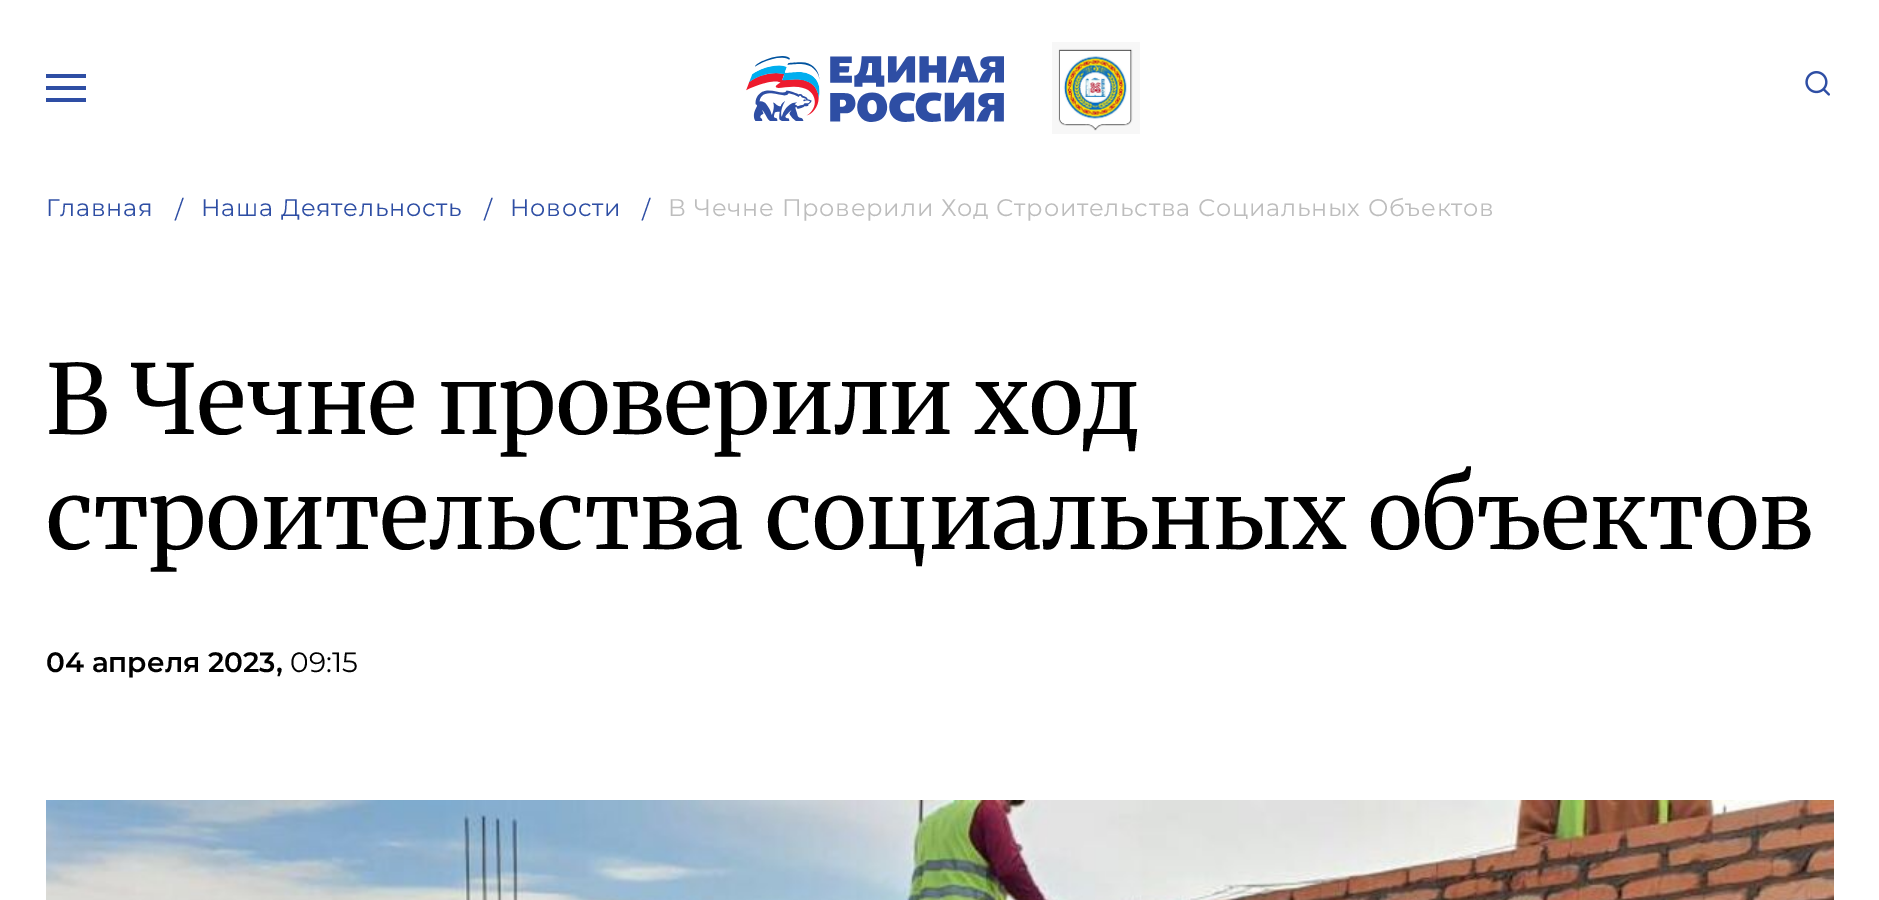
%!PS
<< /PageSize [1879 900] >> setpagedevice
/rgb { 3 { 255 div 3 1 roll } repeat setrgbcolor } def
/font { [ exch dup neg 0 0 3 -1 roll 0 0 ] selectfont } def
/text { moveto show } def
/picture { 5 dict begin { /h /w /y /x /name } { exch def } forall
  gsave x y translate w h scale
  w h 8 [w 0 0 h 0 0] name (r) file false 3 colorimage grestore end } def
0 900 translate 1 -1 scale
4 setmiterlimit
255 255 255 rgb
0 0 1879 900 rectfill
46 78 164 rgb
46 74 40 4 rectfill
46 86 40 4 rectfill
46 98 40 4 rectfill
(img_01.rgb) 746 56 258 66 picture
(img_02.rgb) 1052 42 88 92 picture
(img_03.rgb) 1805 71 25 25 picture
(img_04.rgb) 46 800 1788 100 picture
/Montserrat-Regular 24 font
46 216 moveto 0.72 0 (Главная) ashow
175 218 moveto 0.72 0 (/) ashow
201 216 moveto 0.72 0 (Наша Деятельность) ashow
484 218 moveto 0.72 0 (/) ashow
510 216 moveto 0.72 0 (Новости) ashow
642 218 moveto 0.72 0 (/) ashow
189 189 189 rgb
668 216 moveto 0.72 0 (В Чечне Проверили Ход Строительства Социальных Объектов) ashow
/Merriweather-Regular 96 font
0 0 0 rgb
(В Чечне проверили ход) 46 434 text
(строительства социальных объектов) 46 549 text
/Montserrat-SemiBold 28 font
(04 апреля 2023,) 46 672 text
/Montserrat-Regular 28 font
(09:15) 290 672 text
showpage
